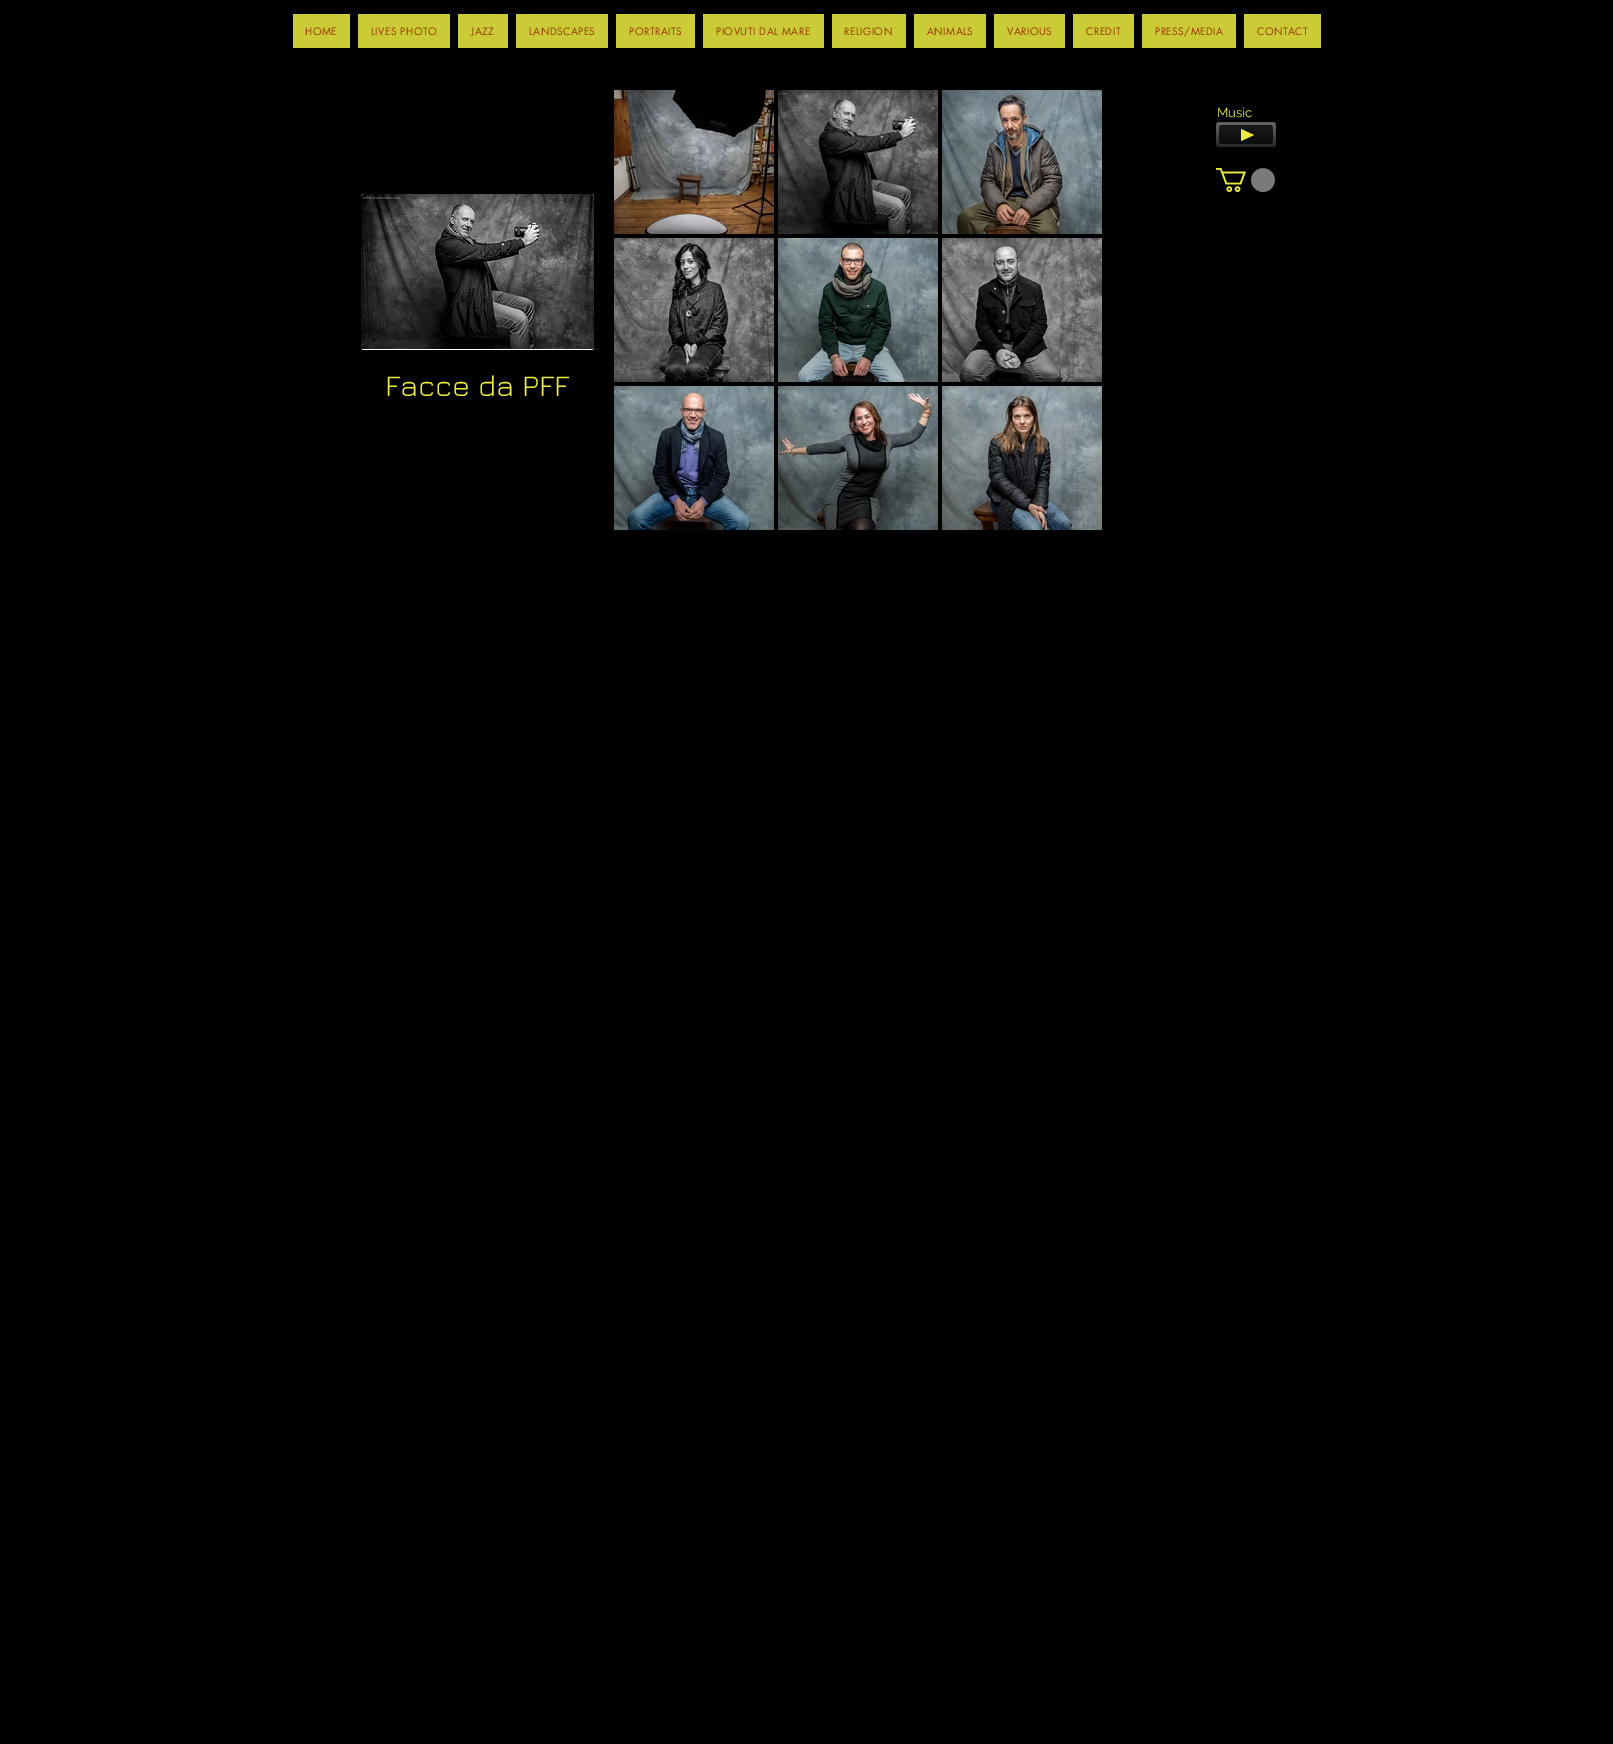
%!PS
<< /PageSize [1613 1744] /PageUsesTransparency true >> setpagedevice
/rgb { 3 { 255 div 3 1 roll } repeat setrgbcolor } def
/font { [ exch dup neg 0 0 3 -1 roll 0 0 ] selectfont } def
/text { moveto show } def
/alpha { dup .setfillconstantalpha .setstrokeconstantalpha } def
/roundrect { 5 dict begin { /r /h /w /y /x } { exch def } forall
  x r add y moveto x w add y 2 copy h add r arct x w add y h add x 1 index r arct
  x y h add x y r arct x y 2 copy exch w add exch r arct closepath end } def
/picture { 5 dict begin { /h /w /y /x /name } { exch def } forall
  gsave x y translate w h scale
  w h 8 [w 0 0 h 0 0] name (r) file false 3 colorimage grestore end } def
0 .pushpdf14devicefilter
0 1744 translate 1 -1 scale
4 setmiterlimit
0 0 0 rgb
0 0 1613 1744 rectfill
202 203 54 rgb
293 14 57 34 rectfill
358 14 92 34 rectfill
458 14 50 34 rectfill
516 14 92 34 rectfill
616 14 79 34 rectfill
703 14 121 34 rectfill
832 14 74 34 rectfill
914 14 72 34 rectfill
994 14 71 34 rectfill
1073 14 61 34 rectfill
1142 14 94 34 rectfill
1244 14 77 34 rectfill
(img_01.rgb) 1216 122 60 25 picture
(img_02.rgb) 1216 122 60 25 picture
0.75 alpha
0 0 0 rgb
1219 125 54 19 3 roundrect fill
1 alpha
235 236 63 rgb
1241 141 moveto 0 -12 rlineto 13 6 rlineto closepath fill
(img_03.rgb) 1216 168 59 24 picture
255 255 255 rgb
361 194 233 156 3 roundrect fill
(img_04.rgb) 361 194 233 155 picture
(img_05.rgb) 614 90 160 144 picture
(img_06.rgb) 778 90 160 144 picture
(img_07.rgb) 942 90 160 144 picture
(img_08.rgb) 614 238 160 144 picture
(img_09.rgb) 778 238 160 144 picture
(img_10.rgb) 942 238 160 144 picture
(img_11.rgb) 614 386 160 144 picture
(img_12.rgb) 778 386 160 144 picture
(img_13.rgb) 942 386 160 144 picture
/futura-Regular 10 font
153 53 0 rgb
305 35 moveto 0.5 0 (HOME) ashow
371 35 moveto 0.5 0 (LIVES PHOTO) ashow
471 35 moveto 0.5 0 (JAZZ) ashow
529 35 moveto 0.5 0 (LANDSCAPES) ashow
629 35 moveto 0.5 0 (PORTRAITS) ashow
716 35 moveto 0.5 0 (PIOVUTI DAL MARE) ashow
844 35 moveto 0.5 0 (RELIGION) ashow
927 35 moveto 0.5 0 (ANIMALS) ashow
1007 35 moveto 0.5 0 (VARIOUS) ashow
1086 35 moveto 0.5 0 (CREDIT) ashow
1155 35 moveto 0.5 0 (PRESS/MEDIA) ashow
1257 35 moveto 0.5 0 (CONTACT) ashow
/Raleway-Regular 13 font
235 236 63 rgb
(Music) 1217 117 text
/Jura-Regular 30 font
(Facce da PFF) 385 396 text
.poppdf14devicefilter showpage
